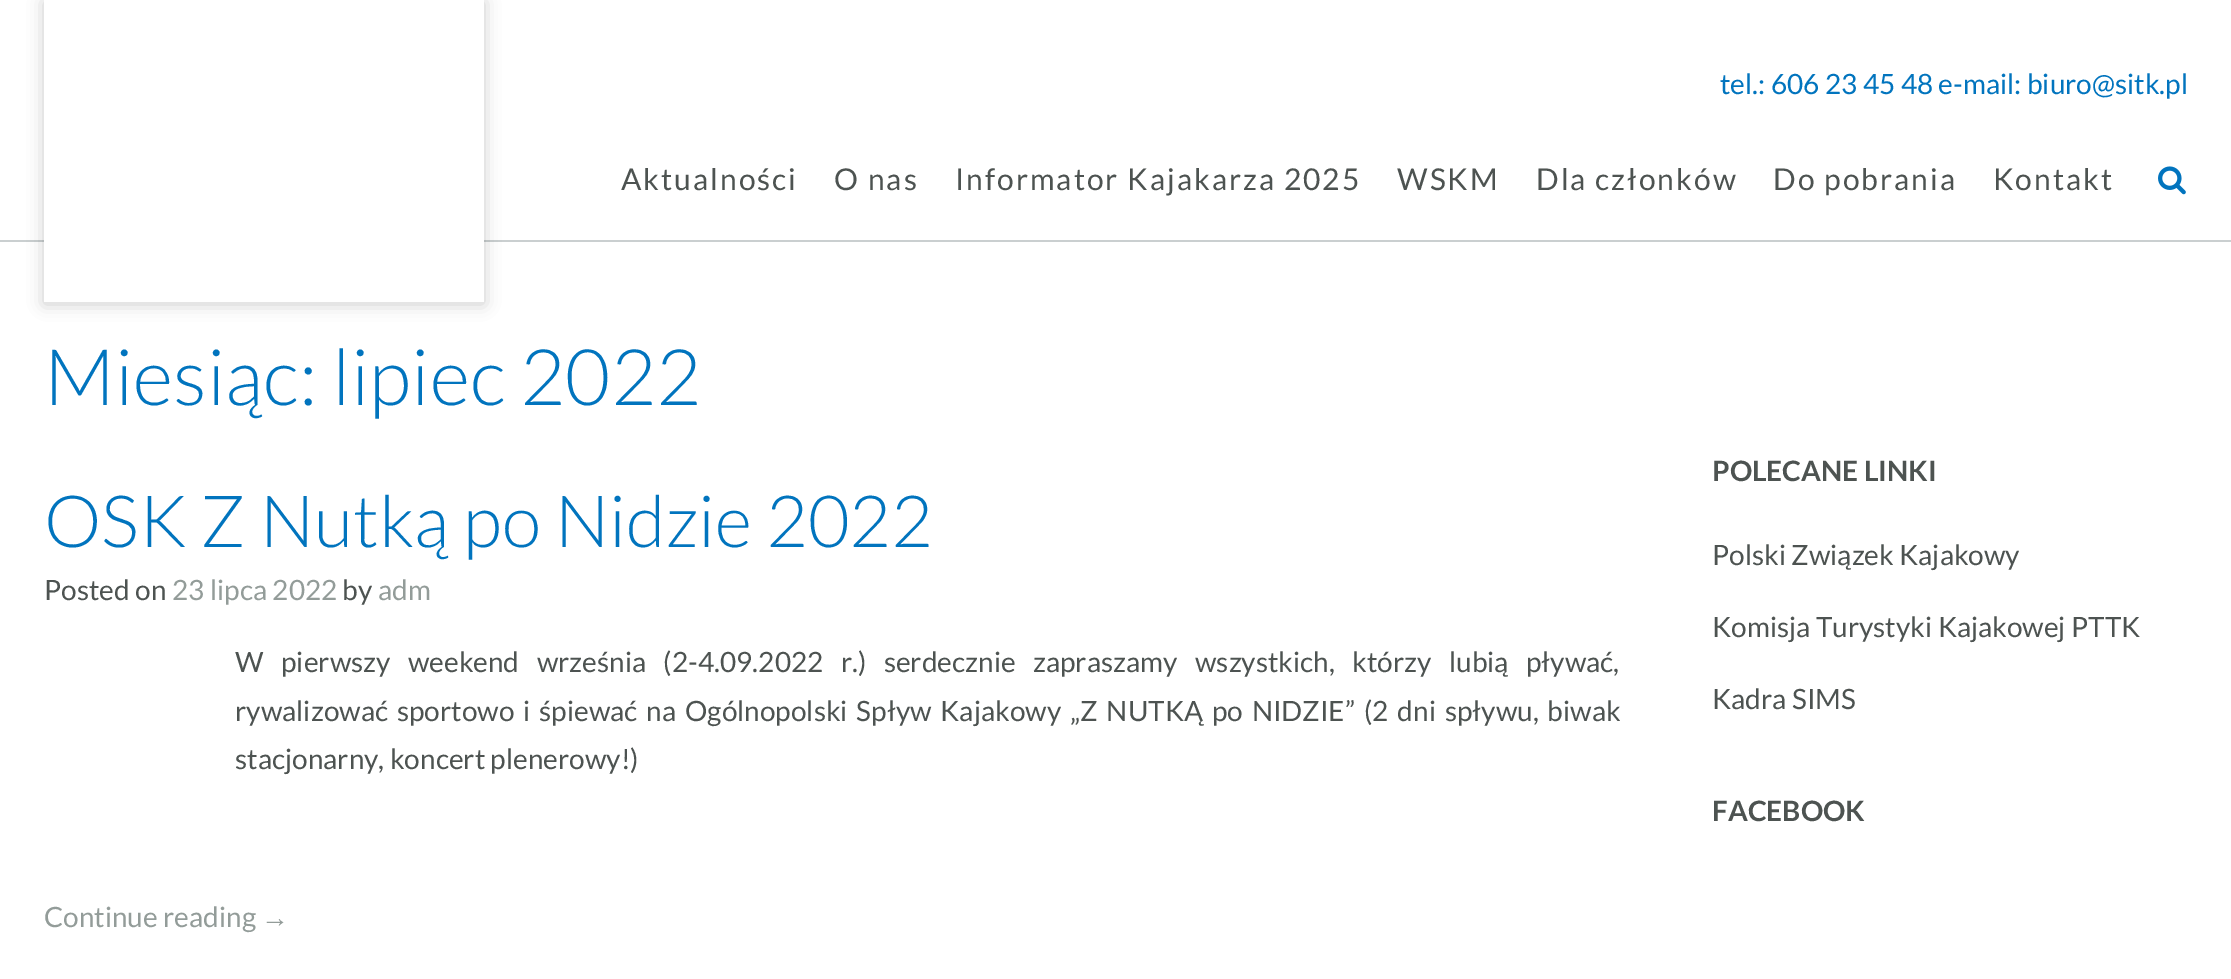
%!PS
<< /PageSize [2231 979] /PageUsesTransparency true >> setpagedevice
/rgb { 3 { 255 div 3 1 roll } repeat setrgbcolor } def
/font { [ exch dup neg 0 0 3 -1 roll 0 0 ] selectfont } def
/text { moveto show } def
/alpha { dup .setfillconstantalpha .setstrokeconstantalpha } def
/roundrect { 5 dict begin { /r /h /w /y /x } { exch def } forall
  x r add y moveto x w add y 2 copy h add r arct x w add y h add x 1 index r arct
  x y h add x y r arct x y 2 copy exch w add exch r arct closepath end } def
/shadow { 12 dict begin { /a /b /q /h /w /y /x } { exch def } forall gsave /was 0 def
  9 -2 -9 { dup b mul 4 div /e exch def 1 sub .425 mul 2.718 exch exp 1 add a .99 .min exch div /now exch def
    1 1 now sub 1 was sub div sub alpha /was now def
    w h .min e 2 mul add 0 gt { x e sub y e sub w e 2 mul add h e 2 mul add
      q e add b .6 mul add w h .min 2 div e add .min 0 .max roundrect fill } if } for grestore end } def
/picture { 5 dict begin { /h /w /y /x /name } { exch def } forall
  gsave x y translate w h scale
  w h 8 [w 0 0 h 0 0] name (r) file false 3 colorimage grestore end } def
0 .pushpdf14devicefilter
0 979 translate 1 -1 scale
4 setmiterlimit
255 255 255 rgb
0 0 2231 979 rectfill
202 207 208 rgb
0 240 2231 2 rectfill
0 0 0 rgb
44 2 440 302 0 8 0.2 shadow
255 255 255 rgb
44 0 440 302 rectfill
(img_01.rgb) 2158 166 28 29 picture
/Lato-Regular 28 font
1 116 190 rgb
(tel.: 606 23 45 48 e-mail: biuro@sitk.pl) 1720 94 text
/Lato-Regular 30 font
77 83 81 rgb
621 190 moveto 2 0 (Aktualności) ashow
834 190 moveto 2 0 (O nas) ashow
955 190 moveto 2 0 (Informator Kajakarza 2025) ashow
1397 190 moveto 2 0 (WSKM) ashow
1536 190 moveto 2 0 (Dla członków) ashow
1773 190 moveto 2 0 (Do pobrania) ashow
1993 190 moveto 2 0 (Kontakt) ashow
/Lato-Light 78 font
1 116 190 rgb
(Miesiąc: lipiec 2022) 44 405 text
/Lato-Light 72 font
(OSK Z Nutką po Nidzie 2022) 44 547 text
/Lato-Regular 28 font
77 83 81 rgb
(Posted on) 44 600 text
147 156 153 rgb
(23 lipca 2022) 172 600 text
77 83 81 rgb
(by) 342 600 text
147 156 153 rgb
(adm) 378 600 text
77 83 81 rgb
235 672 moveto 12 0 32 (W pierwszy weekend września \(2-4.09.2022 r.\) serdecznie zapraszamy wszystkich, którzy lubią pływać,) widthshow
235 721 moveto 3.5 0 32 (rywalizować sportowo i śpiewać na Ogólnopolski Spływ Kajakowy „Z NUTKĄ po NIDZIE” \(2 dni spływu, biwak) widthshow
(stacjonarny, koncert plenerowy!\)) 235 769 text
147 156 153 rgb
(Continue reading) 44 927 text
/LiberationSans-Regular 28 font
(→) 261 927 text
/Lato-Bold 28 font
77 83 81 rgb
(POLECANE LINKI) 1712 481 text
/Lato-Regular 28 font
(Polski Związek Kajakowy) 1712 565 text
(Komisja Turystyki Kajakowej PTTK) 1712 637 text
(Kadra SIMS) 1712 709 text
/Lato-Bold 28 font
(FACEBOOK) 1712 821 text
.poppdf14devicefilter showpage
